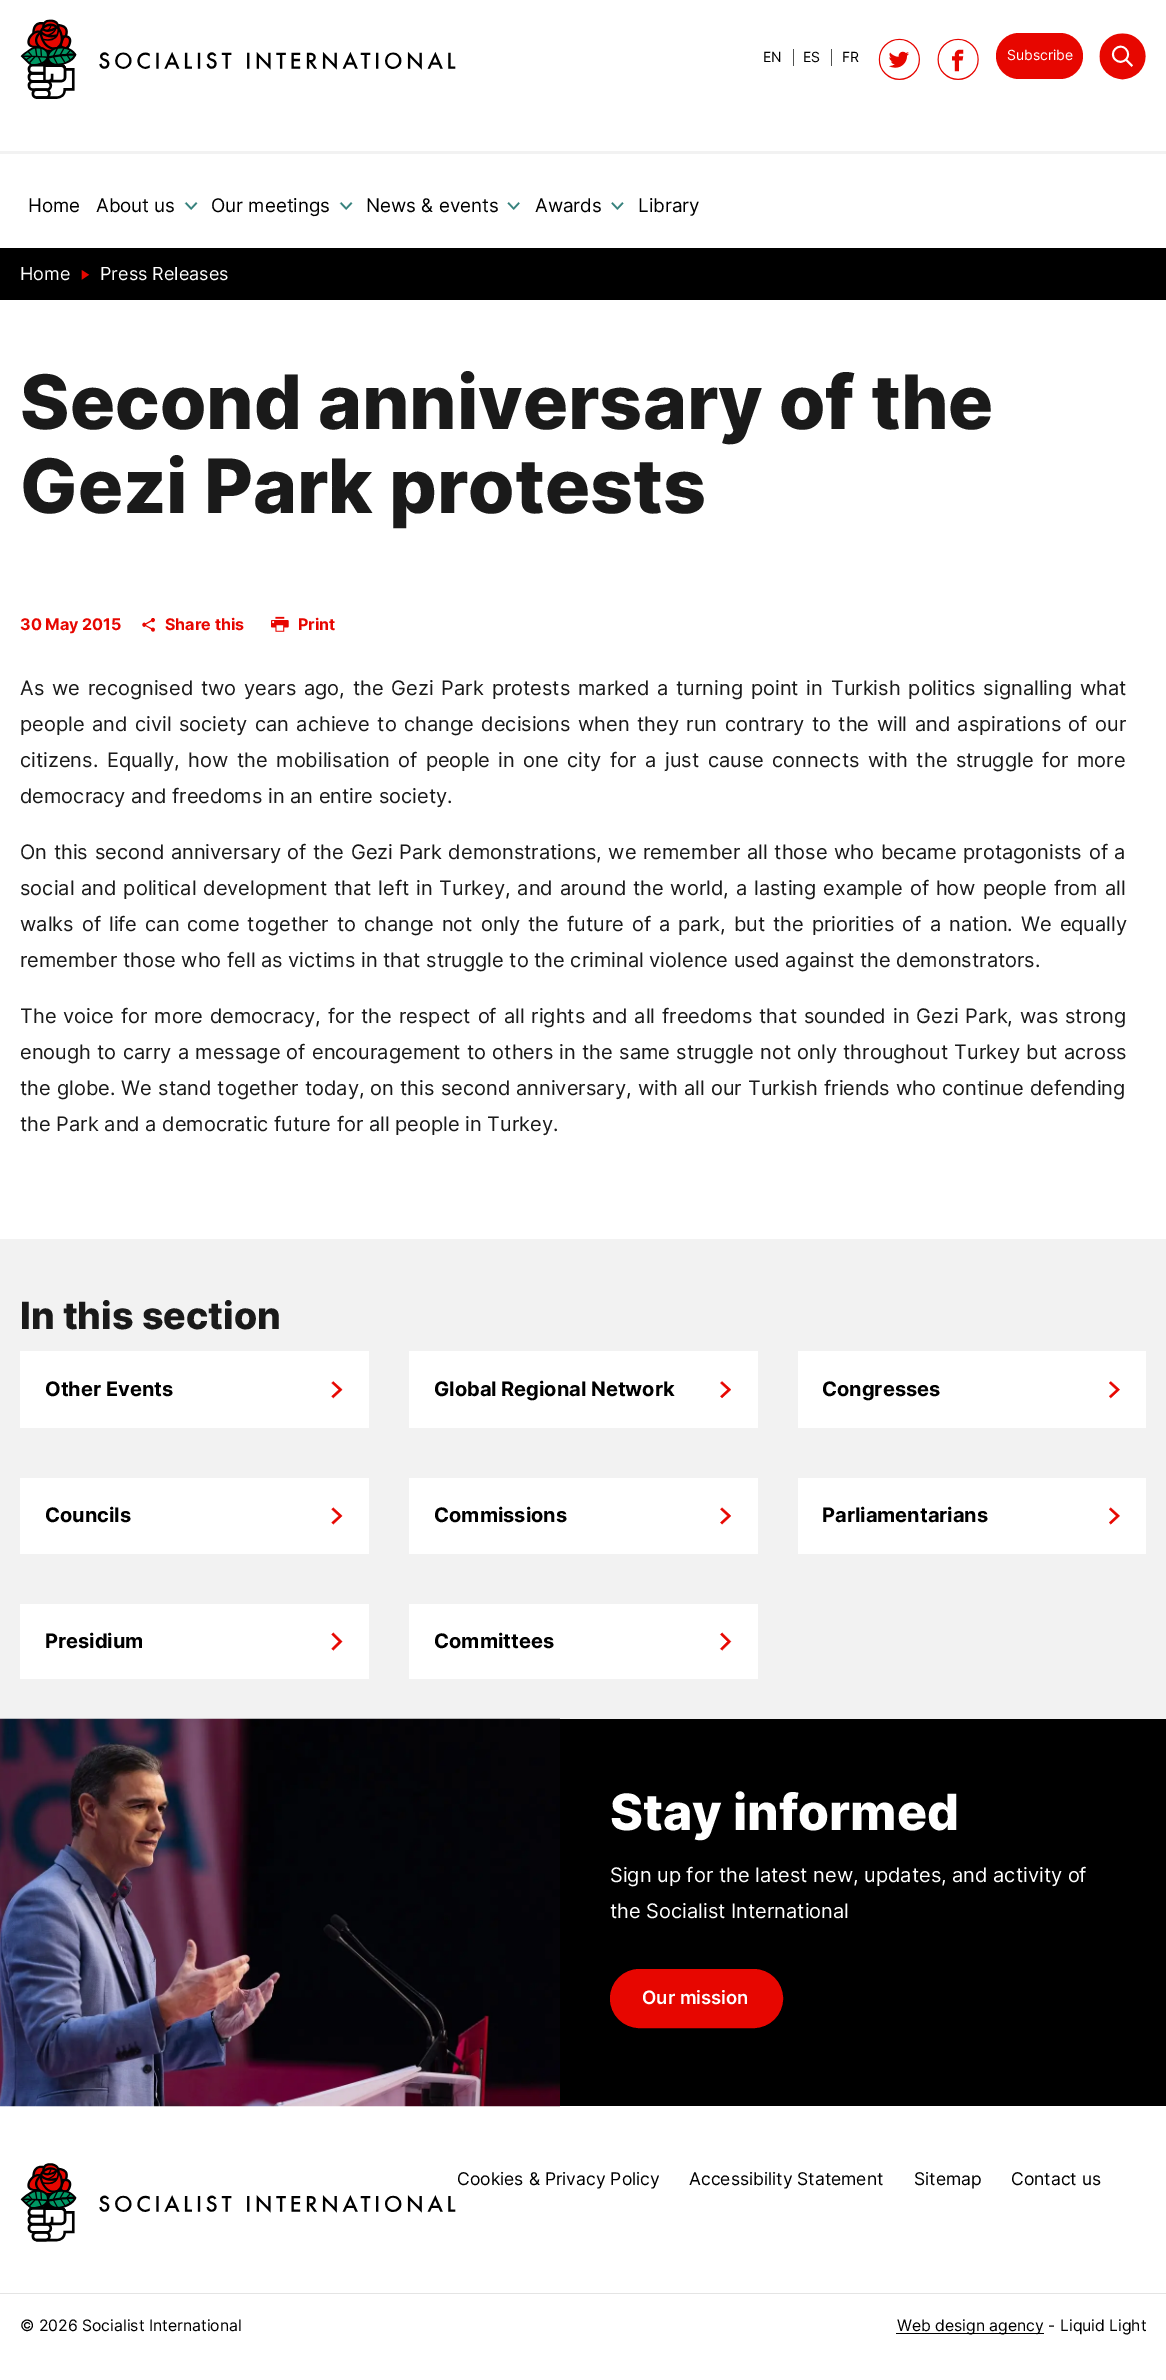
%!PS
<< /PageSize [1166 2380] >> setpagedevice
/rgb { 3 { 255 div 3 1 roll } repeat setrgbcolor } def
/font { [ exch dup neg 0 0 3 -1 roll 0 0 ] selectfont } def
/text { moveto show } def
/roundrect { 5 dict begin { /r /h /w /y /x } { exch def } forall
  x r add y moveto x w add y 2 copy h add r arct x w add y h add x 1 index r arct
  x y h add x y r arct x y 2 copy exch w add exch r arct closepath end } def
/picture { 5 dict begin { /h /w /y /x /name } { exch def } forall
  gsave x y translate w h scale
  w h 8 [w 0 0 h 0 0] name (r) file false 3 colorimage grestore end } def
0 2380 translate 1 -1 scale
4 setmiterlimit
255 255 255 rgb
0 0 1166 2380 rectfill
(img_01.rgb) 20 19 436 80 picture
80 81 80 rgb
793 49 1 17 rectfill
831 49 1 17 rectfill
(img_02.rgb) 878 38 42 42 picture
(img_03.rgb) 937 38 42 42 picture
231 6 0 rgb
996 33 87 46 23 roundrect fill
(img_04.rgb) 1099 33 47 47 picture
242 242 242 rgb
0 151 1166 3 rectfill
(img_05.rgb) 184 202 14 8 picture
(img_05.rgb) 339 202 14 8 picture
(img_06.rgb) 507 202 13 8 picture
(img_07.rgb) 611 202 13 8 picture
0 0 0 rgb
0 248 1166 52 rectfill
(img_08.rgb) 81 270 9 10 picture
(img_09.rgb) 142 618 13 14 picture
(img_10.rgb) 271 616 18 16 picture
242 242 242 rgb
0 1239 1166 480 rectfill
255 255 255 rgb
20 1351 349 77 rectfill
(img_11.rgb) 331 1381 12 18 picture
409 1351 349 77 rectfill
(img_12.rgb) 720 1381 11 17 picture
798 1351 348 77 rectfill
(img_13.rgb) 1109 1381 11 18 picture
20 1478 349 76 rectfill
(img_14.rgb) 331 1507 12 18 picture
409 1478 349 76 rectfill
(img_15.rgb) 720 1507 11 18 picture
798 1478 348 76 rectfill
(img_16.rgb) 1109 1507 11 18 picture
20 1604 349 75 rectfill
(img_17.rgb) 331 1632 12 19 picture
409 1604 349 75 rectfill
(img_18.rgb) 719 1632 13 19 picture
0 0 0 rgb
560 1719 606 387 rectfill
(img_19.rgb) 0 1718 560 389 picture
231 6 0 rgb
611.5 1970.5 170 56 28 roundrect gsave fill grestore
3 setlinewidth
stroke
(img_20.rgb) 20 2163 436 79 picture
228 228 228 rgb
0 2293 1166 1 rectfill
0 0 0 rgb
896 2333 148 1 rectfill
/Inter-Regular 14 font
(EN) 763 62 text
(ES) 803 62 text
(FR) 842 62 text
255 255 255 rgb
(Subscribe) 1007 60 text
/Inter-Regular 18.75 font
0 0 0 rgb
(Home) 28 212 text
(About us) 96 212 text
(Our meetings) 211 212 text
(News & events) 366 212 text
(Awards) 535 212 text
(Library) 638 212 text
/Inter-Regular 18 font
255 255 255 rgb
(Home) 20 280 text
(Press Releases) 100 280 text
/Inter-ExtraBold 75 font
26 26 26 rgb
(Second anniversary of the) 20 429 text
(Gezi Park protests) 20 513 text
/Inter-Bold 16 font
231 6 0 rgb
(30 May 2015) 20 630 text
(Share this) 165 630 text
(Print) 298 630 text
/Inter-Regular 20 font
26 26 26 rgb
20 695 moveto 2.25 0 32 (As we recognised two years ago, the Gezi Park protests marked a turning point in Turkish politics signalling what) widthshow
20 731 moveto 1.9 0 32 (people and civil society can achieve to change decisions when they run contrary to the will and aspirations of our) widthshow
20 767 moveto 2.9 0 32 (citizens. Equally, how the mobilisation of people in one city for a just cause connects with the struggle for more) widthshow
(democracy and freedoms in an entire society.) 20 803 text
20 859 moveto 1.1 0 32 (On this second anniversary of the Gezi Park demonstrations, we remember all those who became protagonists of a) widthshow
20 895 moveto 1.25 0 32 (social and political development that left in Turkey, and around the world, a lasting example of how people from all) widthshow
20 931 moveto 2.4 0 32 (walks of life can come together to change not only the future of a park, but the priorities of a nation. We equally) widthshow
(remember those who fell as victims in that struggle to the criminal violence used against the demonstrators.) 20 967 text
20 1023 moveto 1.3 0 32 (The voice for more democracy, for the respect of all rights and all freedoms that sounded in Gezi Park, was strong) widthshow
20 1059 moveto 0.7 0 32 (enough to carry a message of encouragement to others in the same struggle not only throughout Turkey but across) widthshow
20 1095 moveto 0.5 0 32 (the globe. We stand together today, on this second anniversary, with all our Turkish friends who continue defending) widthshow
(the Park and a democratic future for all people in Turkey.) 20 1131 text
/Inter-ExtraBold 37.5 font
(In this section) 20 1329 text
/Inter-Bold 20 font
0 0 0 rgb
(Other Events) 45 1396 text
(Global Regional Network) 434 1396 text
(Congresses) 822 1396 text
(Councils) 45 1522 text
(Commissions) 434 1522 text
(Parliamentarians) 822 1522 text
(Presidium) 45 1648 text
(Committees) 434 1648 text
/Inter-ExtraBold 50 font
255 255 255 rgb
(Stay informed) 610 1830 text
/Inter-Regular 20 font
(Sign up for the latest new, updates, and activity of) 610 1882 text
(the Socialist International) 610 1918 text
/Inter-SemiBold 18.5 font
(Our mission) 642 2004 text
/Inter-Regular 17.5 font
0 0 0 rgb
(Cookies & Privacy Policy) 457 2185 text
(Accessibility Statement) 689 2185 text
(Sitemap) 914 2185 text
(Contact us) 1011 2185 text
/Inter-Regular 15.75 font
(© 2026 Socialist International) 20 2331 text
(Web design agency - Liquid Light) 897 2331 text
showpage
